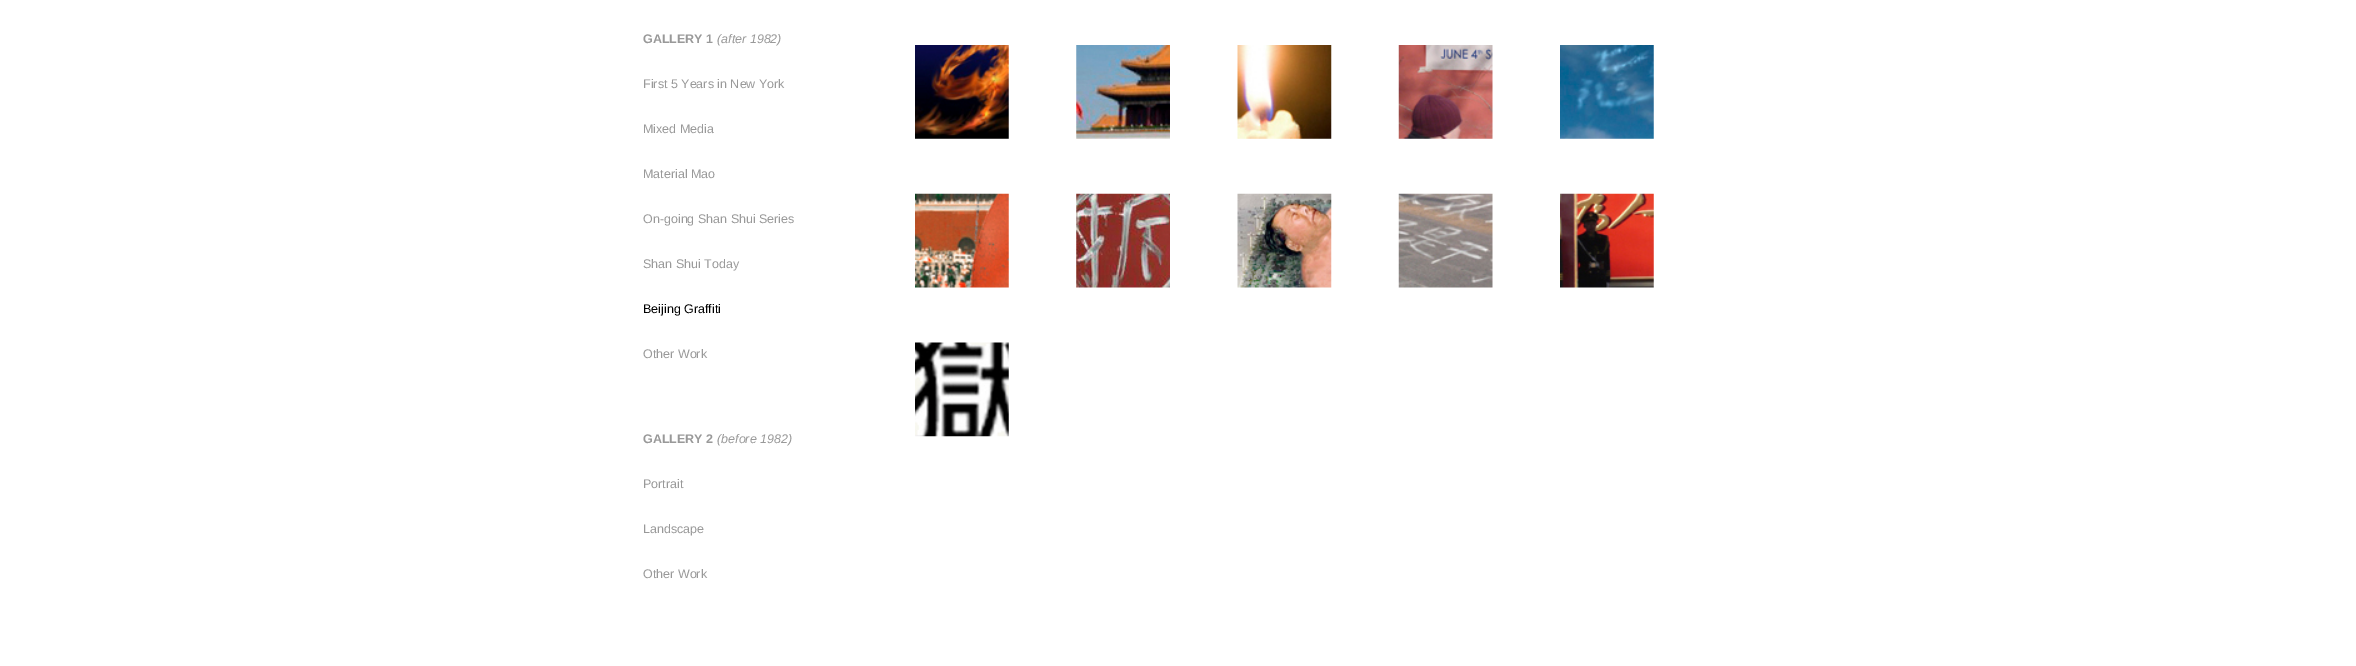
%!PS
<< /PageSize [2356 666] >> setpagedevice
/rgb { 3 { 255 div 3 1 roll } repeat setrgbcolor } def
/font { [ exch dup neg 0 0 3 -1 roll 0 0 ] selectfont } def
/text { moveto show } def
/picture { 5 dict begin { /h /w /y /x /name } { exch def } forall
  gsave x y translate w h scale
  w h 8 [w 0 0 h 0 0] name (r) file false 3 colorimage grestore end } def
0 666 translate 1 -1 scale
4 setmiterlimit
255 255 255 rgb
0 0 2356 666 rectfill
(img_01.rgb) 915 45 739 392 picture
/LiberationSans-Bold 12.5 font
153 153 153 rgb
(GALLERY 1) 643 43 text
/LiberationSans-Italic 12.5 font
(\(after 1982\)) 717 43 text
/LiberationSans-Regular 12.5 font
(First 5 Years in New York) 643 88 text
(Mixed Media) 643 133 text
(Material Mao) 643 178 text
(On-going Shan Shui Series) 643 223 text
(Shan Shui Today) 643 268 text
0 0 0 rgb
(Beijing Graffiti) 643 313 text
153 153 153 rgb
(Other Work) 643 358 text
/LiberationSans-Bold 12.5 font
(GALLERY 2) 643 443 text
/LiberationSans-Italic 12.5 font
(\(before 1982\)) 717 443 text
/LiberationSans-Regular 12.5 font
(Portrait) 643 488 text
(Landscape) 643 533 text
(Other Work) 643 578 text
showpage
